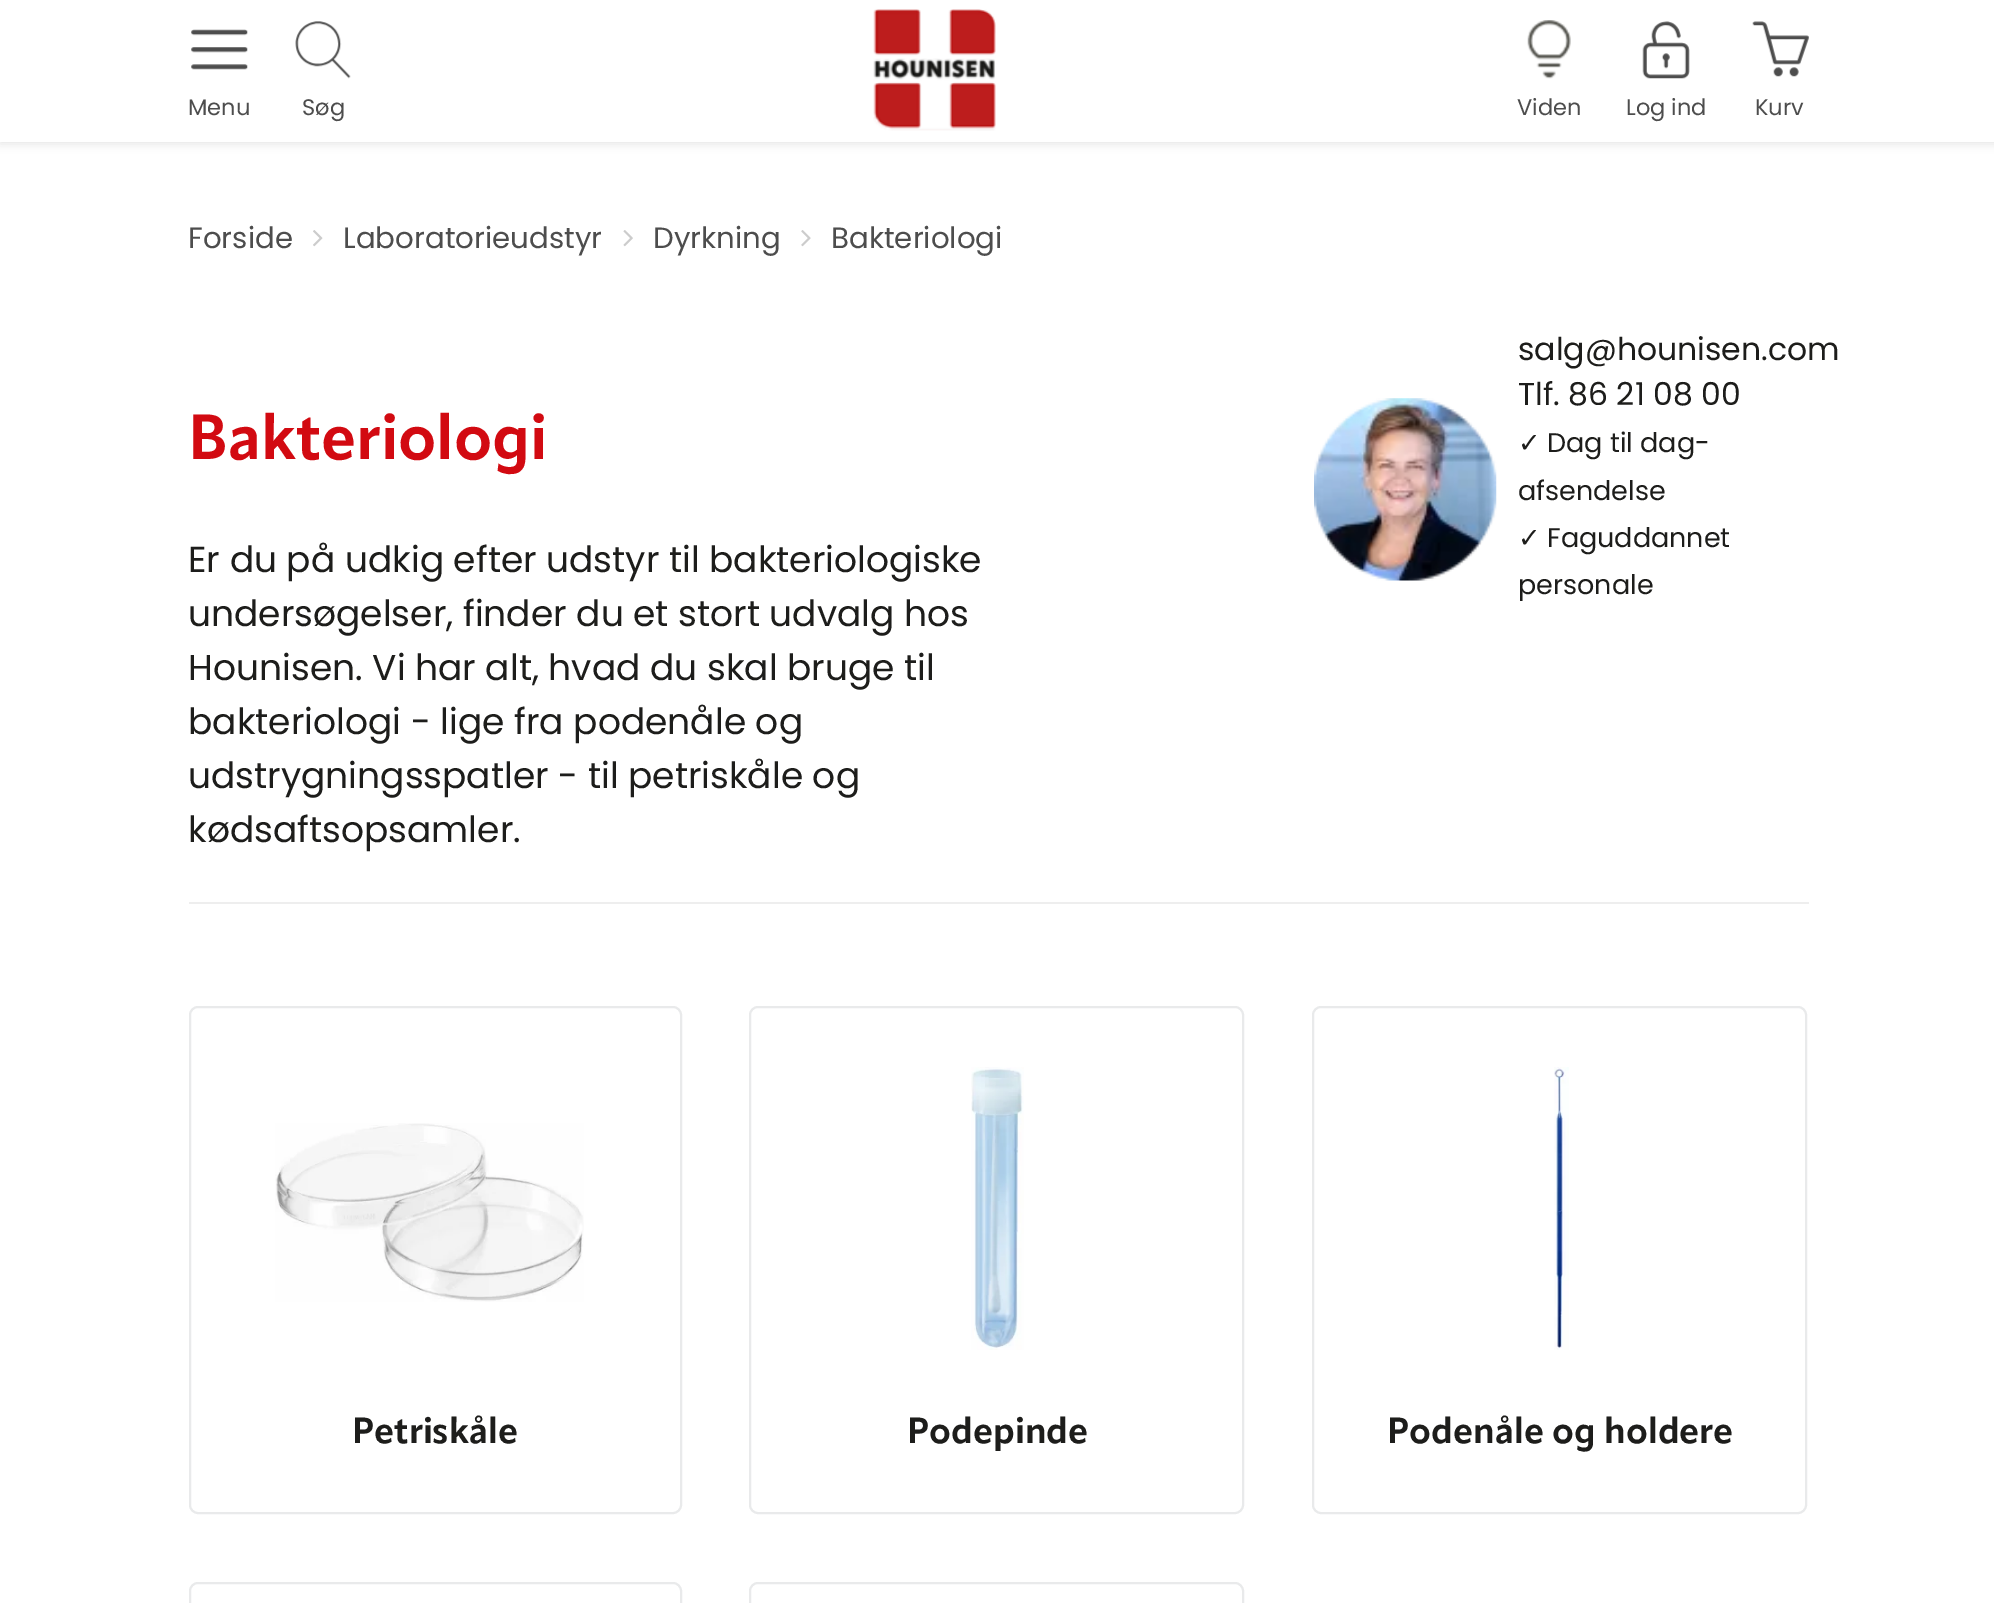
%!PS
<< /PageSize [1994 1603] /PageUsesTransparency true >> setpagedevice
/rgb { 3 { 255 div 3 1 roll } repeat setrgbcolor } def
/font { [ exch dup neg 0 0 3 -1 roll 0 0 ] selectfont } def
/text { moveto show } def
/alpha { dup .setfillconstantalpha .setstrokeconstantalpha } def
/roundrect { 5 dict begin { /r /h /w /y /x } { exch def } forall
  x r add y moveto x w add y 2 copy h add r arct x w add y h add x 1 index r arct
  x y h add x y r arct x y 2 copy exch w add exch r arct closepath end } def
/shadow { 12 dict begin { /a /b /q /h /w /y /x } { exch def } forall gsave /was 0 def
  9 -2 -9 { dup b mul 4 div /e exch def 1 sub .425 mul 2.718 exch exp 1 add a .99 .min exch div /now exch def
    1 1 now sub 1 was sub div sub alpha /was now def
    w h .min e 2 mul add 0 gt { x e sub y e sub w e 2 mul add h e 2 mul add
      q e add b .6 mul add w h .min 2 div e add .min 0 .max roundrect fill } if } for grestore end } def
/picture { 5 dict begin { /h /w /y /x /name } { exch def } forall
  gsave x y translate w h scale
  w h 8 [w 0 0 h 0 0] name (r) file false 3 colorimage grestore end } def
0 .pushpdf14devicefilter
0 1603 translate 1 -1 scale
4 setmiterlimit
255 255 255 rgb
0 0 1994 1603 rectfill
0 0 0 rgb
0 2 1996 142 0 4.5 0.1 shadow
255 255 255 rgb
0 0 1994 142 rectfill
(img_01.rgb) 191 29 57 41 picture
(img_02.rgb) 295 21 56 58 picture
(img_03.rgb) 873 9 123 122 picture
(img_04.rgb) 1527 20 44 59 picture
(img_05.rgb) 1642 21 48 58 picture
(img_06.rgb) 1752 21 57 56 picture
(img_07.rgb) 313 230 10 17 picture
(img_08.rgb) 623 230 10 17 picture
(img_09.rgb) 801 230 10 17 picture
238 238 238 rgb
189 902 1620 2 rectfill
(img_10.rgb) 1314 398 183 183 picture
233 234 235 rgb
2 setlinewidth
190 1007 491 506 8 roundrect stroke
(img_11.rgb) 275 1123 309 179 picture
750 1007 493 506 8 roundrect stroke
(img_12.rgb) 971 1067 53 283 picture
1313 1007 493 506 8 roundrect stroke
(img_13.rgb) 1554 1067 15 283 picture
190 1583 491 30 8 roundrect stroke
750 1583 493 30 8 roundrect stroke
/Poppins-Regular 22.5 font
77 77 77 rgb
(Menu) 188 115 text
(Søg) 302 115 text
(Viden) 1517 115 text
(Log ind) 1626 115 text
(Kurv) 1755 115 text
/Poppins-Regular 29.25 font
(Forside) 188 248 text
(Laboratorieudstyr) 343 248 text
(Dyrkning) 653 248 text
(Bakteriologi) 831 248 text
/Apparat-Bold 63 font
210 10 17 rgb
(Bakteriologi) 188 459 text
/Poppins-Regular 36 font
29 29 27 rgb
(Er du på udkig efter udstyr til bakteriologiske) 188 572 text
(undersøgelser, finder du et stort udvalg hos) 188 626 text
(Hounisen. Vi har alt, hvad du skal bruge til) 188 680 text
(bakteriologi - lige fra podenåle og) 188 734 text
(udstrygningsspatler - til petriskåle og) 188 788 text
(kødsaftsopsamler.) 188 842 text
/Poppins-Regular 31.5 font
(salg@hounisen.com) 1518 360 text
(Tlf. 86 21 08 00) 1518 405 text
/DejaVuSans-Regular 27 font
(✓) 1518 452 text
/Poppins-Regular 27 font
(Dag til dag-) 1547 452 text
(afsendelse) 1518 500 text
/DejaVuSans-Regular 27 font
(✓) 1518 547 text
/Poppins-Regular 27 font
(Faguddannet) 1547 547 text
(personale) 1518 594 text
/Apparat-Bold 36 font
(Petriskåle) 352 1443 text
(Podepinde) 907 1443 text
(Podenåle og holdere) 1387 1443 text
.poppdf14devicefilter showpage
